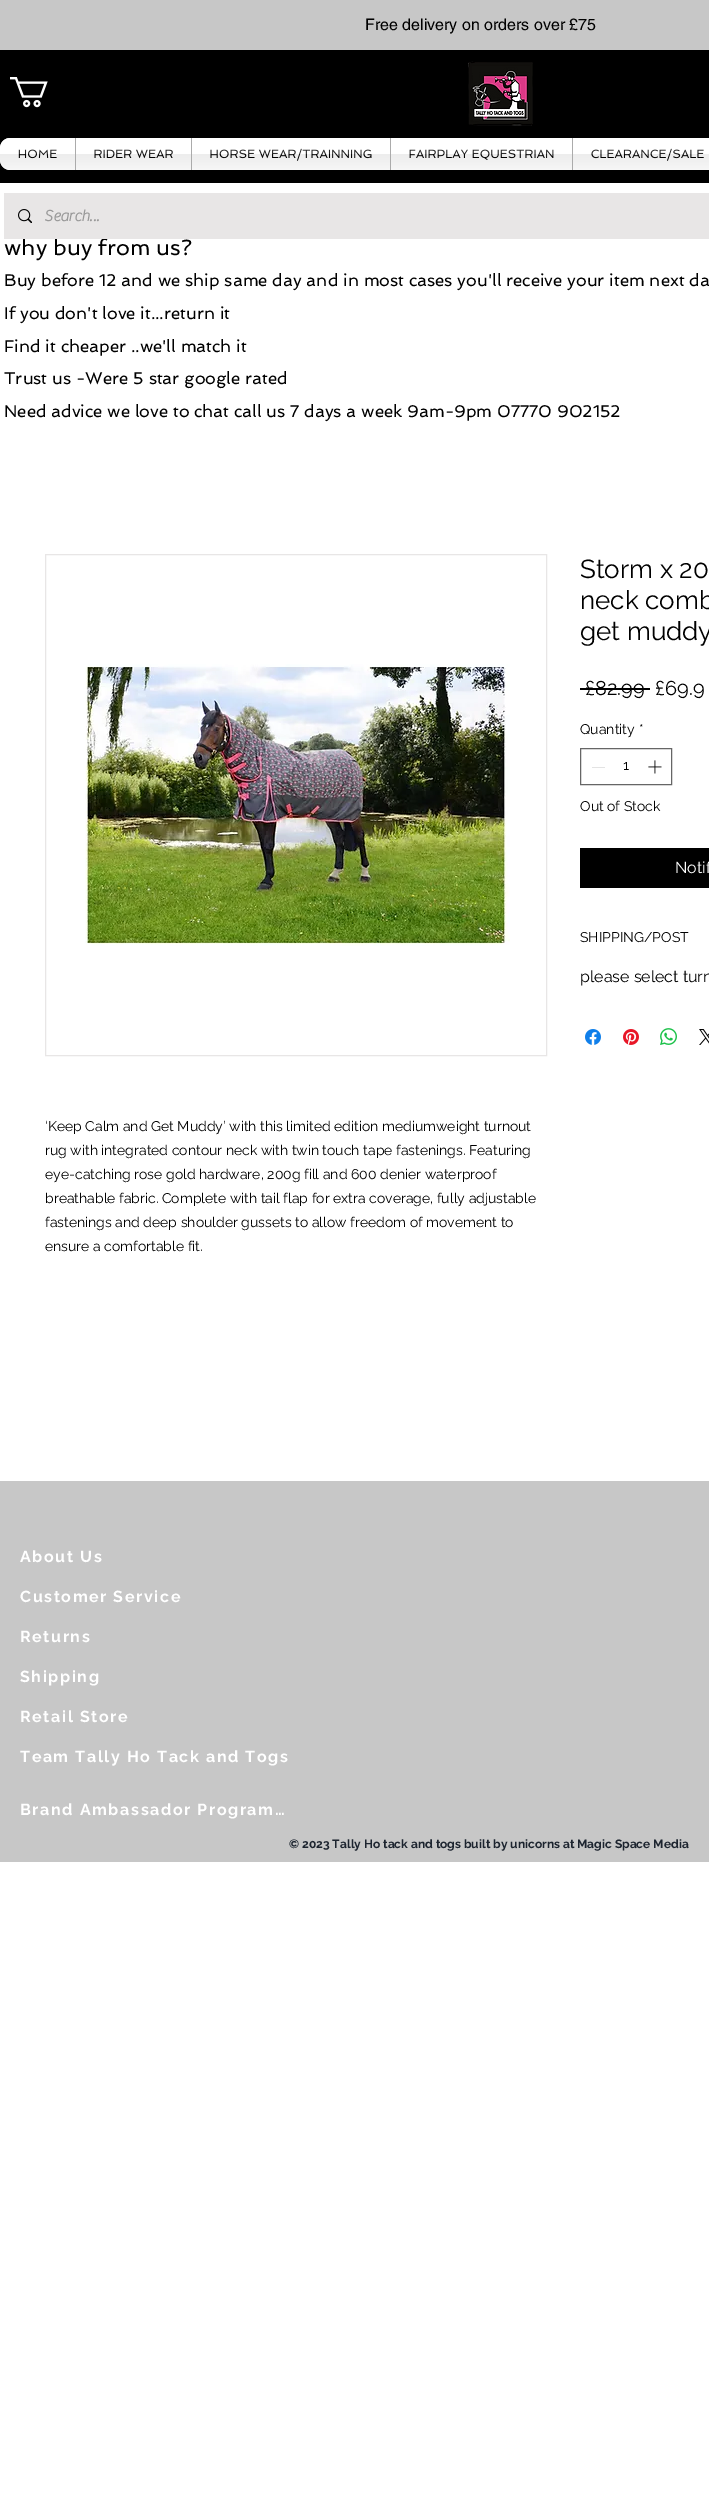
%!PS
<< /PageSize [709 2499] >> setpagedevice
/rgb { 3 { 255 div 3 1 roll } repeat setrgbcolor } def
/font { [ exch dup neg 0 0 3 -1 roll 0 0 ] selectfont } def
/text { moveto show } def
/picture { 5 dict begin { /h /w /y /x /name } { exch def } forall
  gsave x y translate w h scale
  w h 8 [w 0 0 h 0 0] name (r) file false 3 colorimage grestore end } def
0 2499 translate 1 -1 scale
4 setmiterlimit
255 255 255 rgb
0 0 709 2499 rectfill
199 199 199 rgb
0 0 709 50 rectfill
0 0 0 rgb
0 50 709 133 rectfill
(img_01.rgb) 10 77 38 31 picture
(img_02.rgb) 468 61 65 65 picture
(img_03.rgb) 0 138 10 32 picture
255 255 255 rgb
10 138 moveto 65 0 rlineto 0 32 rlineto -65 0 rlineto -5.5 0 -10 -4.5 -10 -10 rcurveto 0 -12 rlineto 0 -5.5 4.5 -10 10 -10 rcurveto closepath fill
76 138 115 32 rectfill
171 171 171 rgb
75 138 1 32 rectfill
255 255 255 rgb
192 138 198 32 rectfill
171 171 171 rgb
191 138 1 32 rectfill
255 255 255 rgb
391 138 181 32 rectfill
171 171 171 rgb
390 138 1 32 rectfill
255 255 255 rgb
573 138 136 32 rectfill
171 171 171 rgb
572 138 1 32 rectfill
0 0 0 rgb
580 688 70 2 rectfill
102 102 102 rgb
580.5 748.5 91 36 rectstroke
227 227 227 rgb
592 767 13 1 rectfill
(img_10.rgb) 648 760 14 14 picture
0 0 0 rgb
580 848 129 40 rectfill
(img_11.rgb) 585 1029 16 16 picture
(img_12.rgb) 623 1029 16 16 picture
(img_13.rgb) 660 1028 17 17 picture
(img_14.rgb) 699 1029 10 16 picture
232 230 230 rgb
45.5 554.5 501 501 rectstroke
(img_15.rgb) 85 664 425 282 picture
199 199 199 rgb
0 1481 709 381 rectfill
/helvetica-Regular 16 font
0 0 0 rgb
(Free delivery on orders over £75) 365 30 text
/Spinnaker-Regular 12 font
(HOME) 18 158 text
(img_04.rgb) 0 138 75 32 picture
(RIDER WEAR) 93 158 text
(img_05.rgb) 76 149 115 21 picture
(HORSE WEAR/TRAINNING) 209 158 text
(img_06.rgb) 192 148 198 22 picture
(FAIRPLAY EQUESTRIAN) 409 158 text
(img_07.rgb) 391 149 181 21 picture
(CLEARANCE/SALE) 591 158 text
(img_08.rgb) 573 148 136 22 picture
/Spinnaker-Regular 22 font
(why buy from us?) 4 255 text
232 230 230 rgb
4 193 705 46 rectfill
/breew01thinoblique-Bold 16 font
153 153 153 rgb
(Search...) 44 221 text
(img_09.rgb) 18 209 14 14 picture
/Spinnaker-Regular 17 font
0 0 0 rgb
(Buy before 12 and we ship same day and in most cases you'll receive your item next da) 4 286 text
(If you don't love it...return it) 4 319 text
(Find it cheaper ..we'll match it) 4 352 text
(Trust us -Were 5 star google rated) 4 384 text
(Need advice we love to chat call us 7 days a week 9am-9pm 07770 902152) 4 417 text
/Raleway-Regular 26 font
(Storm x 20) 580 578 text
(neck comb) 580 609 text
(get muddy) 580 640 text
/Raleway-Regular 20 font
(£82.99) 585 695 text
(£69.9) 655 695 text
/Raleway-Regular 14 font
(Quantity) 580 734 text
(*) 639 734 text
(1) 623 770 text
(Out of Stock) 580 811 text
/Raleway-Regular 16 font
255 255 255 rgb
(Notif) 675 873 text
/Raleway-Regular 14 font
0 0 0 rgb
(SHIPPING/POST) 580 942 text
/Raleway-Regular 16 font
(please select turn) 580 982 text
/Raleway-Regular 14 font
(‘Keep Calm and Get Muddy’ with this limited edition mediumweight turnout) 45 1131 text
(rug with integrated contour neck with twin touch tape fastenings. Featuring) 45 1155 text
(eye-catching rose gold hardware, 200g fill and 600 denier waterproof) 45 1179 text
(breathable fabric. Complete with tail flap for extra coverage, fully adjustable) 45 1203 text
(fastenings and deep shoulder gussets to allow freedom of movement to) 45 1227 text
(ensure a comfortable fit.) 45 1251 text
/Raleway-Bold 16 font
255 255 255 rgb
20 1562 moveto 1.6 0 (About Us) ashow
20 1602 moveto 1.6 0 (Customer Service) ashow
20 1642 moveto 1.6 0 (Returns) ashow
20 1682 moveto 1.6 0 (Shipping) ashow
20 1722 moveto 1.6 0 (Retail Store) ashow
20 1762 moveto 1.6 0 (Team Tally Ho Tack and Togs) ashow
20 1815 moveto 1.6 0 (Brand Ambassador Program…) ashow
/Raleway-Bold 12 font
28 36 47 rgb
(© 2023 Tally Ho tack and togs built by unicorns at Magic Space Media) 289 1848 text
showpage
